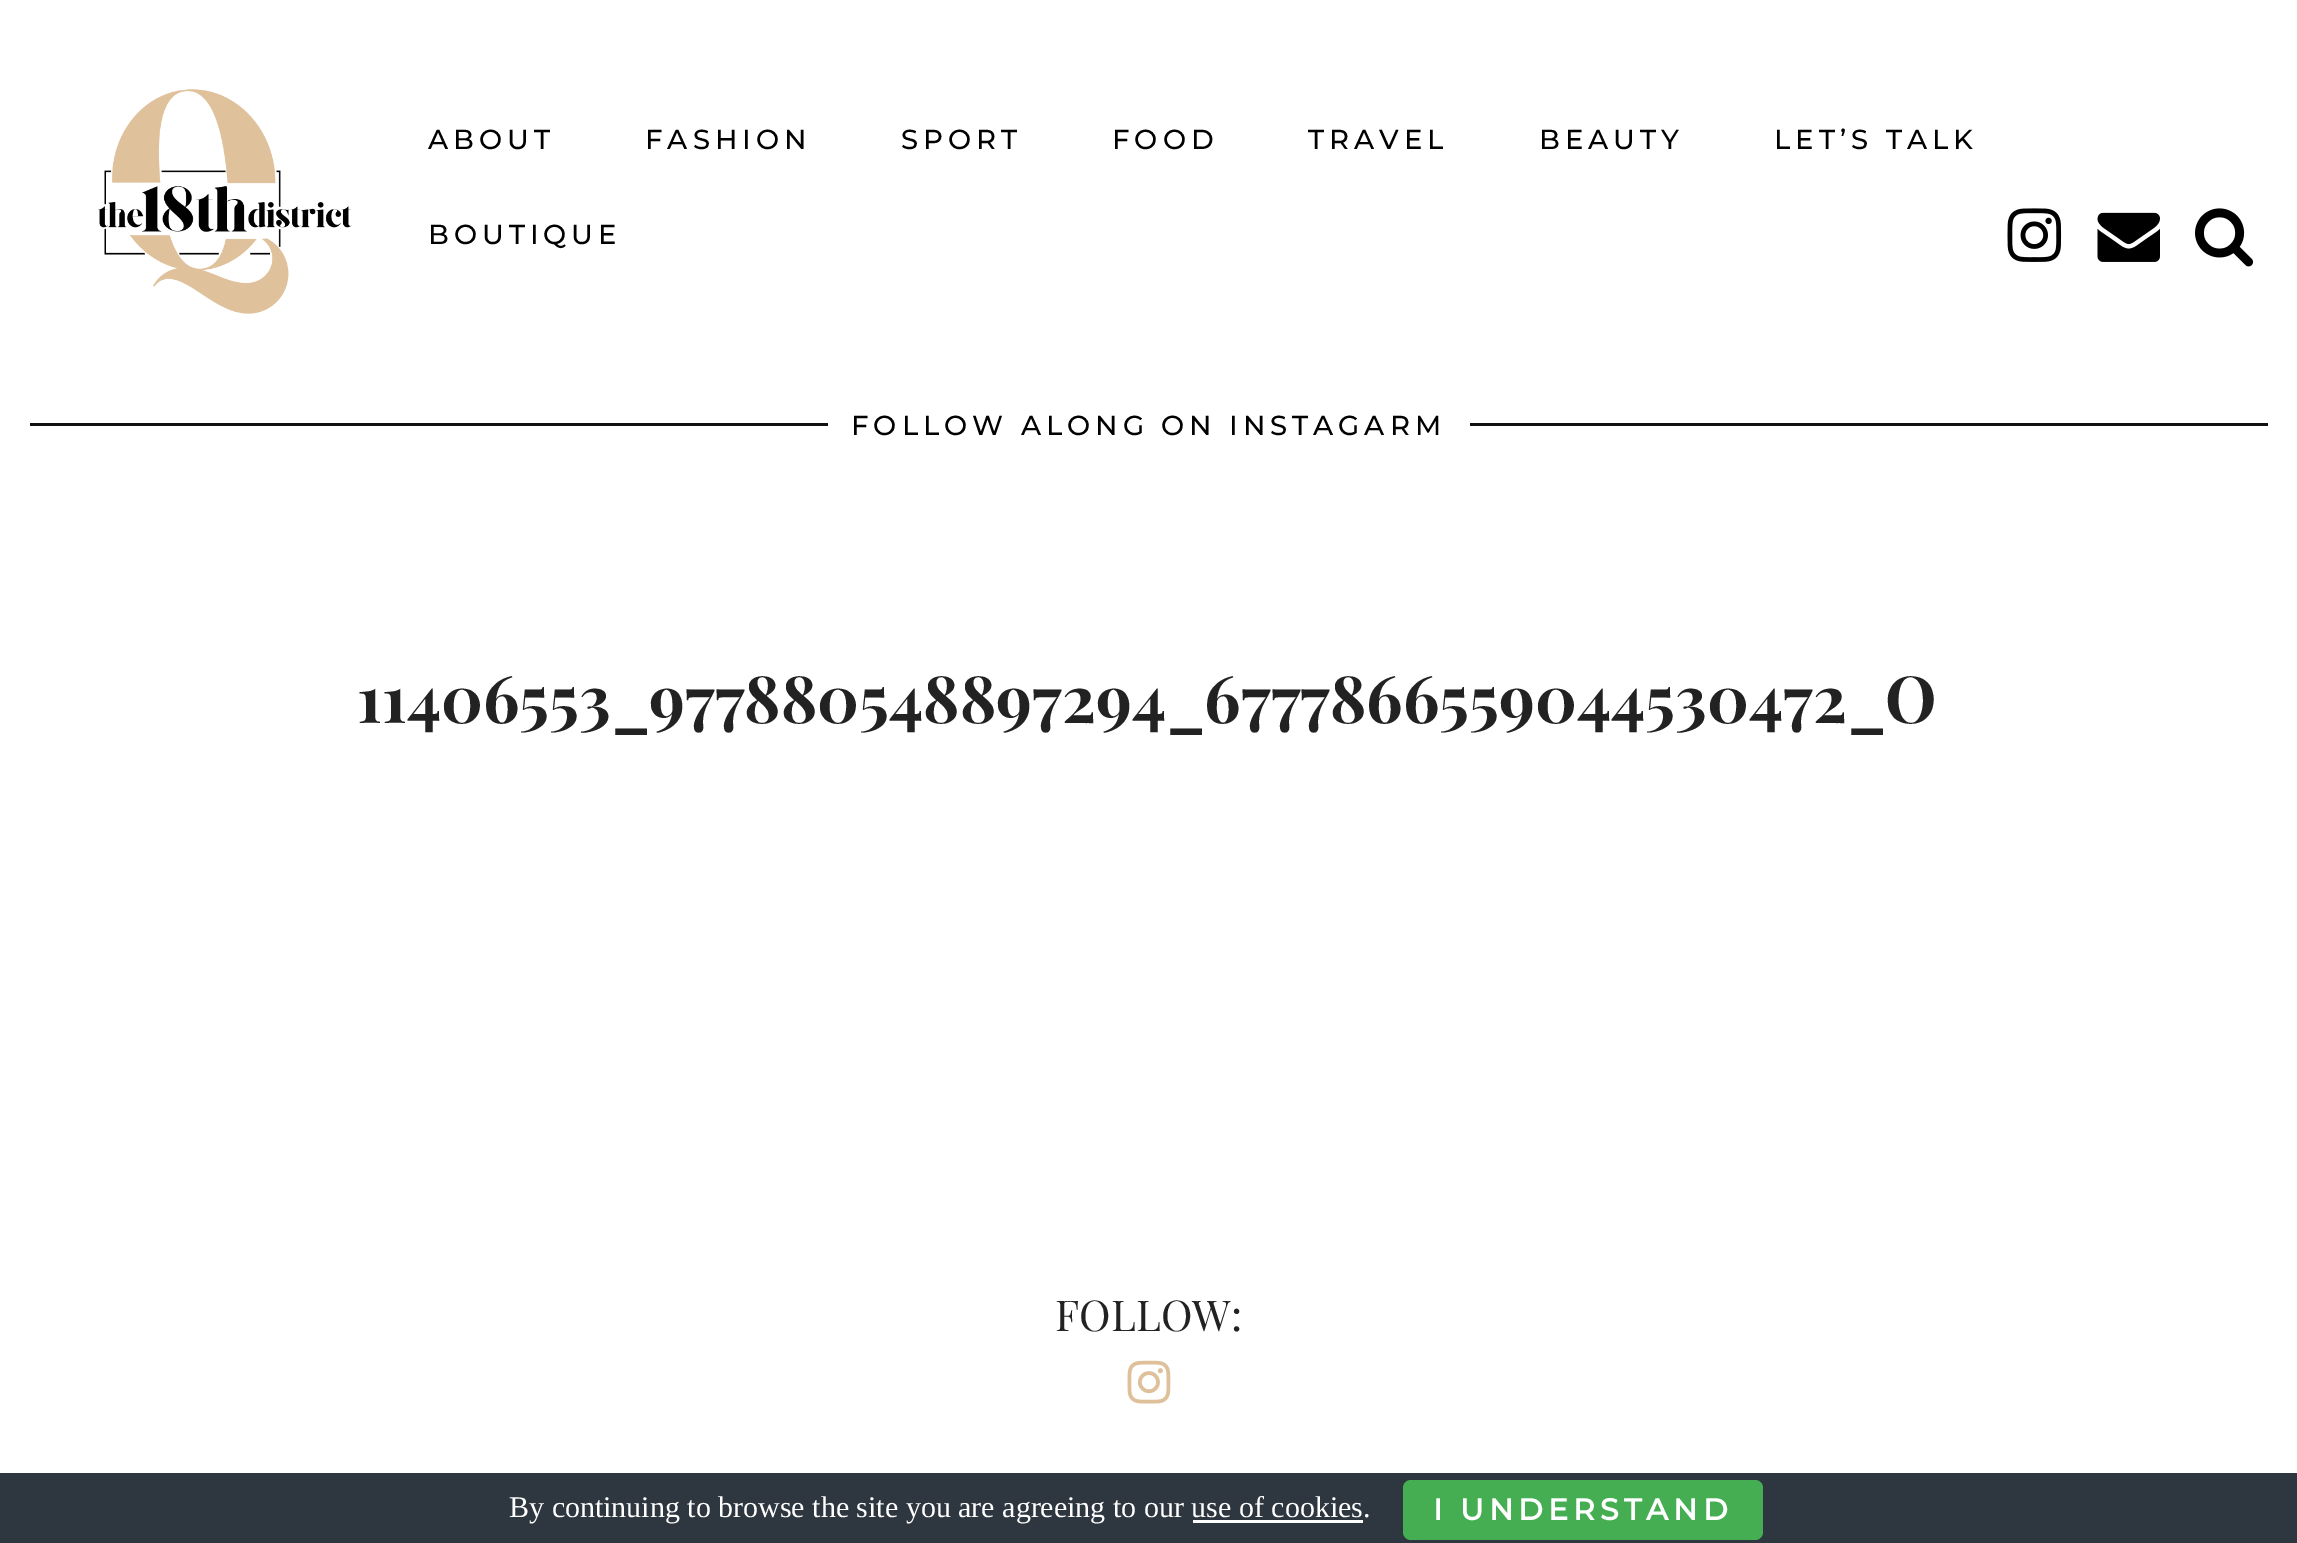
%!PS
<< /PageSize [2297 1543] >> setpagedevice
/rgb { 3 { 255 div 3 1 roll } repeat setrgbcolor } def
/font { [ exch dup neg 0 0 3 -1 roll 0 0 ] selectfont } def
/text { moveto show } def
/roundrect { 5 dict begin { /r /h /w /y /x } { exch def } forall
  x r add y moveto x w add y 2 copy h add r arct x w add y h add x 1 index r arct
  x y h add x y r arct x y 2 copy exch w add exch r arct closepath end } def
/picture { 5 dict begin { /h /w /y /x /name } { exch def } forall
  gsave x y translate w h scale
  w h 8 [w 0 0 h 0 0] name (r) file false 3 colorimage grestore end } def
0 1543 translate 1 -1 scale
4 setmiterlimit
255 255 255 rgb
0 0 2297 1543 rectfill
(img_01.rgb) 98 89 254 225 picture
(img_02.rgb) 2007 208 55 54 picture
(img_03.rgb) 2097 212 63 50 picture
(img_04.rgb) 2195 208 58 59 picture
17 17 17 rgb
30 423 2238 3 rectfill
255 255 255 rgb
828 423 642 3 rectfill
(img_05.rgb) 1127 1360 44 44 picture
46 54 63 rgb
0 1473 2297 70 rectfill
69 174 82 rgb
1403 1480 360 60 8 roundrect fill
255 255 255 rgb
1193 1520 170 3 rectfill
/Montserrat-Thin 27.5 font
0 0 0 rgb
428 149 moveto 5 0 (ABOUT) ashow
645 149 moveto 5 0 (FASHION) ashow
901 149 moveto 5 0 (SPORT) ashow
1112 149 moveto 5 0 (FOOD) ashow
1308 149 moveto 5 0 (TRAVEL) ashow
1539 149 moveto 5 0 (BEAUTY) ashow
1774 149 moveto 5 0 (LET’S TALK) ashow
428 244 moveto 5 0 (BOUTIQUE) ashow
851 435 moveto 5 0 (FOLLOW ALONG ON INSTAGARM) ashow
/PlayfairDisplay-Bold 65 font
34 34 34 rgb
(11406553_977880548897294_6777866559044530472_O) 357 723 text
/PlayfairDisplay-Regular 42.5 font
(FOLLOW:) 1055 1331 text
/LiberationSerif-Regular 30 font
255 255 255 rgb
(By continuing to browse the site you are agreeing to our use of cookies.) 509 1517 text
/Montserrat-Bold 30 font
1433 1520 moveto 5 0 (I UNDERSTAND) ashow
showpage
